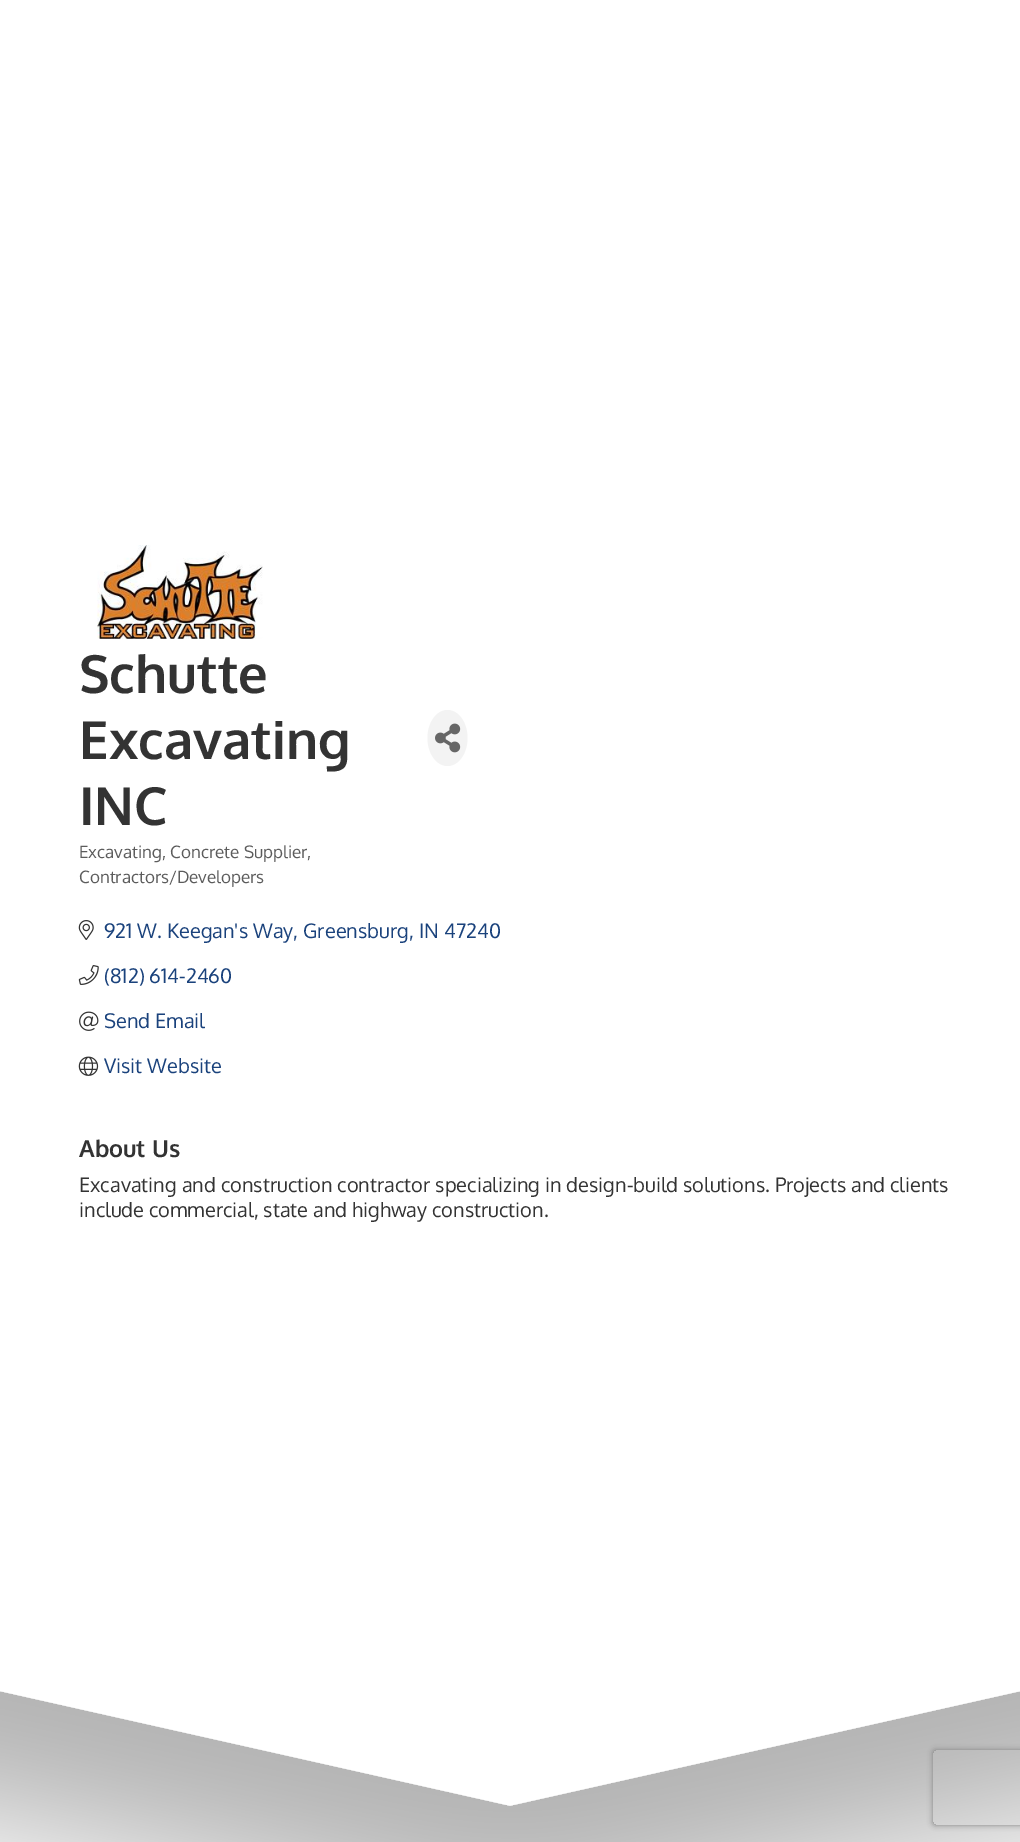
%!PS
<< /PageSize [1020 1842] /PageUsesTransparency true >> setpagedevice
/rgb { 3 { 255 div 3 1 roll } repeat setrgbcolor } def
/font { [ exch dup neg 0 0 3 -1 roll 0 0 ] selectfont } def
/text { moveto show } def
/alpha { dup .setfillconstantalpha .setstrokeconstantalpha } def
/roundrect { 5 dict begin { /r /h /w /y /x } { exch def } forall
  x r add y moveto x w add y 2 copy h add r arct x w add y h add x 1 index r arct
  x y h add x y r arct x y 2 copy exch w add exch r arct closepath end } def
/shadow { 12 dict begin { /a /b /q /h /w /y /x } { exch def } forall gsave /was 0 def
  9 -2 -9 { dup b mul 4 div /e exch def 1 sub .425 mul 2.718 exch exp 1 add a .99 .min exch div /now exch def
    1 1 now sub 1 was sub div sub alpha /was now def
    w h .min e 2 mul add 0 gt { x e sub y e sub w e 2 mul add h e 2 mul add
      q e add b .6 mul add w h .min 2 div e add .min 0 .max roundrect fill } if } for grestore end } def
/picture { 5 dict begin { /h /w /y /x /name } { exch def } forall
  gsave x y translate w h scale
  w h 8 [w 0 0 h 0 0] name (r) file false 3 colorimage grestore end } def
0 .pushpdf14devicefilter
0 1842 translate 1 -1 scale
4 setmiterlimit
255 255 255 rgb
0 0 1020 1842 rectfill
(img_01.rgb) 0 153 1020 1689 picture
(img_02.rgb) 97 545 166 94 picture
243 243 243 rgb
447.5 710 moveto 11 0 20 12.5 20 28 rcurveto 0 15.5 -9 28 -20 28 rcurveto -11 0 -20 -12.5 -20 -28 rcurveto 0 -15.5 9 -28 20 -28 rcurveto closepath fill
(img_03.rgb) 435 723 26 30 picture
(img_04.rgb) 78 920 16 20 picture
(img_05.rgb) 78 965 21 20 picture
(img_06.rgb) 79 1011 20 20 picture
(img_07.rgb) 78 1056 21 20 picture
gsave
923 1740 moveto 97 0 rlineto 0 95 rlineto -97 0 rlineto closepath 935.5 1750 moveto 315 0 rlineto 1.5 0 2.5 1 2.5 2.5 rcurveto 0 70 rlineto 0 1.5 -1 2.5 -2.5 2.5 rcurveto -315 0 rlineto -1.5 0 -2.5 -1 -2.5 -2.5 rcurveto 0 -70 rlineto 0 -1.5 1 -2.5 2.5 -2.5 rcurveto closepath eoclip newpath
128 128 128 rgb
933 1750 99 75 2.5 3 1 shadow
grestore
/Oxygen-Bold 52.5 font
51 51 51 rgb
(Schutte) 79 693 text
(Excavating) 79 759 text
(INC) 79 825 text
/Oxygen-Regular 17 font
92 92 92 rgb
(Excavating, Concrete Supplier,) 79 858 text
(Contractors/Developers) 79 883 text
/Oxygen-Regular 20 font
26 66 124 rgb
(921 W. Keegan's Way, Greensburg, IN 47240) 104 938 text
(\(812\) 614-2460) 104 983 text
(Send Email) 104 1028 text
(Visit Website) 104 1073 text
/Oxygen-Bold 23.5 font
51 51 51 rgb
(About Us) 79 1157 text
/Oxygen-Regular 20 font
(Excavating and construction contractor specializing in design-build solutions. Projects and clients) 79 1192 text
(include commercial, state and highway construction.) 79 1217 text
.poppdf14devicefilter showpage
